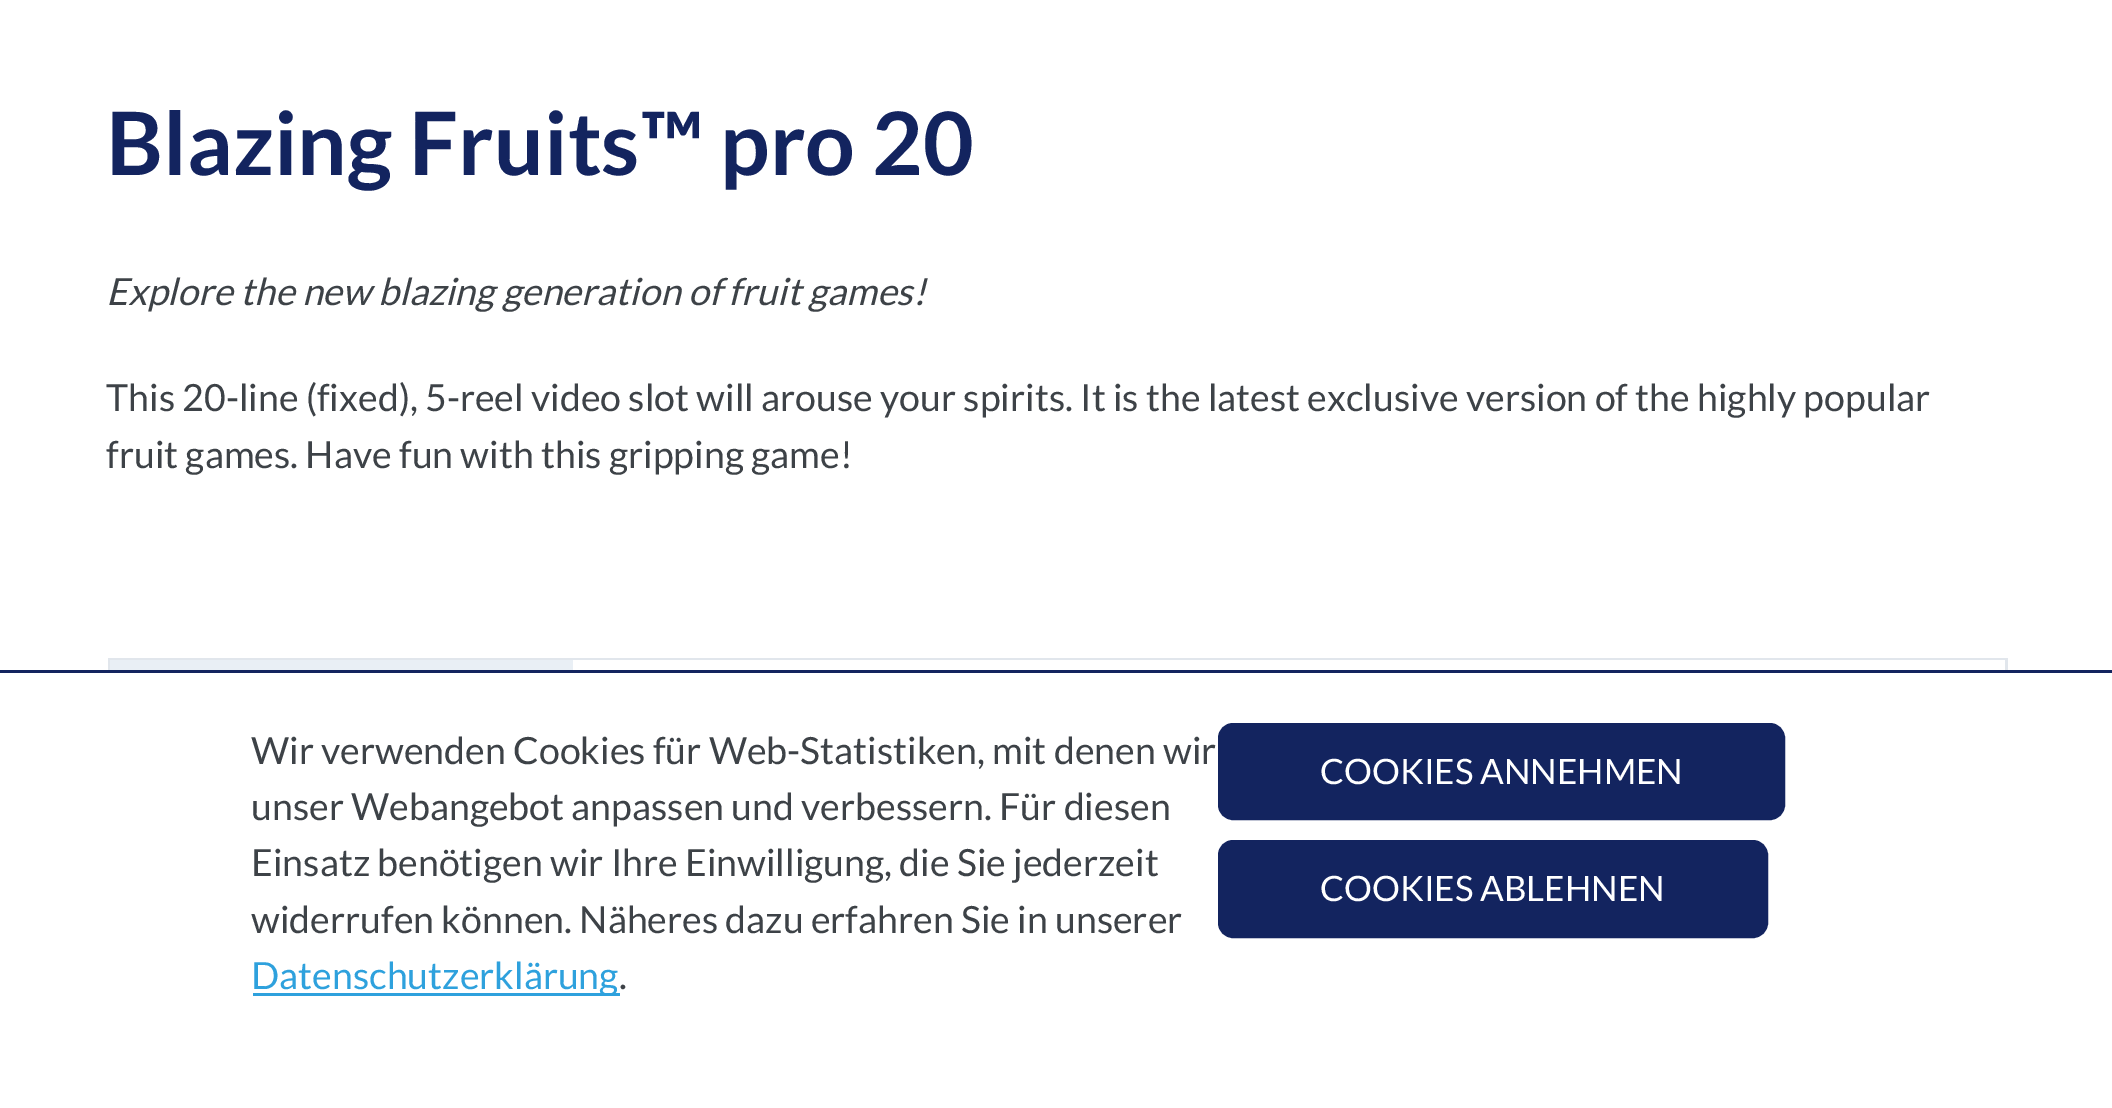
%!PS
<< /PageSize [2112 1108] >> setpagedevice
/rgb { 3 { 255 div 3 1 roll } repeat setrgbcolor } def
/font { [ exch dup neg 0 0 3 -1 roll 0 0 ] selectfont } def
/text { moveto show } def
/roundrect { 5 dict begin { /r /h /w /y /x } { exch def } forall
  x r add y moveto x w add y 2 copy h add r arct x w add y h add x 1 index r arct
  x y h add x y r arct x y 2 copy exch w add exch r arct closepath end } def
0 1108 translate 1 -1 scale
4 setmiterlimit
255 255 255 rgb
0 0 2112 1108 rectfill
225 230 236 rgb
108 658 1900 2 rectfill
2005 658 3 12 rectfill
108 658 3 12 rectfill
233 239 245 rgb
110 660 463 10 rectfill
19 36 95 rgb
0 670 2112 3 rectfill
46 161 221 rgb
253 993 367 3 rectfill
19 36 95 rgb
1219.5 724.5 564 94 13.5 roundrect gsave fill grestore
3 setlinewidth
stroke
1219.5 841.5 547 95 13.5 roundrect gsave fill grestore
stroke
/Lato-Bold 87.5 font
(Blazing Fruits™ pro 20) 106 175 text
/Lato-Italic 37.5 font
61 66 71 rgb
(Explore the new blazing generation of fruit games!) 106 305 text
/Lato-Regular 37.5 font
(This 20-line \(fixed\), 5-reel video slot will arouse your spirits. It is the latest exclusive version of the highly popular) 106 411 text
(fruit games. Have fun with this gripping game!) 106 468 text
(Wir verwenden Cookies für Web-Statistiken, mit denen wir) 251 764 text
(unser Webangebot anpassen und verbessern. Für diesen) 251 820 text
(Einsatz benötigen wir Ihre Einwilligung, die Sie jederzeit) 251 876 text
(widerrufen können. Näheres dazu erfahren Sie in unserer) 251 933 text
46 161 221 rgb
(Datenschutzerklärung) 251 989 text
61 66 71 rgb
(.) 619 989 text
/Lato-Regular 35 font
255 255 255 rgb
(COOKIES ANNEHMEN) 1320 784 text
(COOKIES ABLEHNEN) 1320 901 text
showpage
